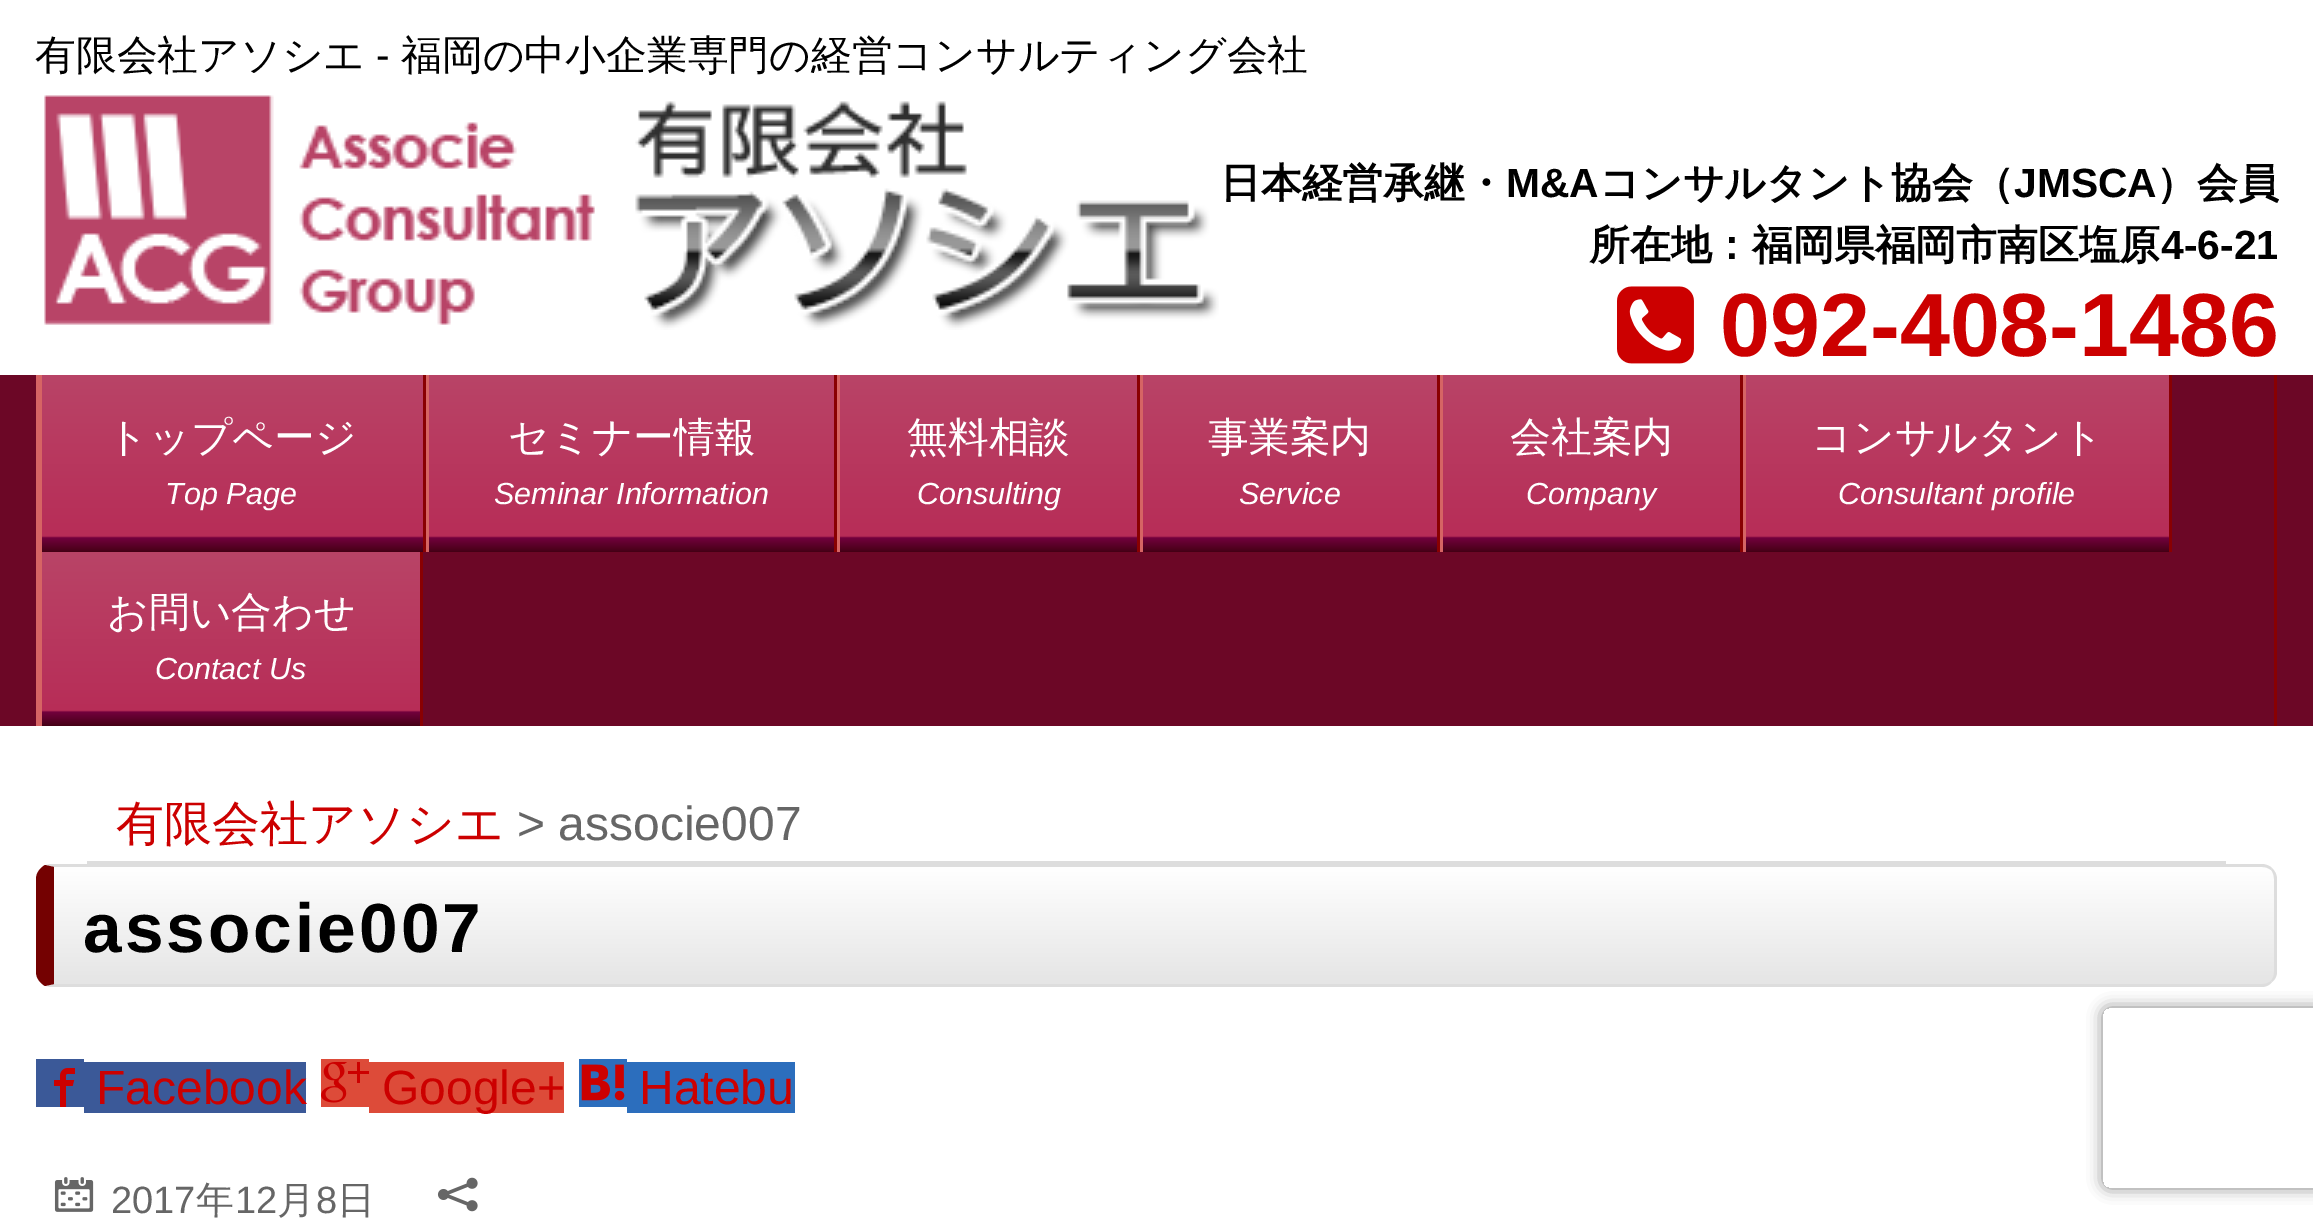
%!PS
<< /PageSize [2313 1228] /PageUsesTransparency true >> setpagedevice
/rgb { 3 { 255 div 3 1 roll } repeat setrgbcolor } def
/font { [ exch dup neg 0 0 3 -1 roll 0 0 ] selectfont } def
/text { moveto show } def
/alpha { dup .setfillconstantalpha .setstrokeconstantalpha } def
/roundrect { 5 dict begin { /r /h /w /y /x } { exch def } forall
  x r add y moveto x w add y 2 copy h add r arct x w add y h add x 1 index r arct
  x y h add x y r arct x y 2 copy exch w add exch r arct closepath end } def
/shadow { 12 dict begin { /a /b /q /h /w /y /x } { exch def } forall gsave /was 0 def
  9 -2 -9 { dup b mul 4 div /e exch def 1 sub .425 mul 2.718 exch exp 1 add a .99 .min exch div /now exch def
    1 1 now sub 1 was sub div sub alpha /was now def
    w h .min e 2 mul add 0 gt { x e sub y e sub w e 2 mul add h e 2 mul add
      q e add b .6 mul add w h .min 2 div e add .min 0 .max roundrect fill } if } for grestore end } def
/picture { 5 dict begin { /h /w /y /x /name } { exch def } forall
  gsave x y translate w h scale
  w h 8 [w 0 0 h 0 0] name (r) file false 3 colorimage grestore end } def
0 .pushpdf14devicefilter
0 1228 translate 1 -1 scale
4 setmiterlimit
255 255 255 rgb
0 0 2313 1228 rectfill
(img_01.rgb) 44 95 1175 235 picture
(img_02.rgb) 1617 286 77 78 picture
108 7 38 rgb
0 375 2313 351 rectfill
137 0 2 rgb
2274 375 3 351 rectfill
214 100 100 rgb
36 375 3 351 rectfill
gsave 42 375 moveto 381 0 rlineto 0 177 rlineto -381 0 rlineto closepath clip newpath
<< /ShadingType 2 /ColorSpace /DeviceRGB /Coords [233 375 233 552] /Extend [true true] /Function << /FunctionType 3 /Domain [0 1] /Functions [<< /FunctionType 2 /Domain [0 1] /C0 [0.722 0.267 0.404] /C1 [0.718 0.176 0.341] /N 1 >> << /FunctionType 2 /Domain [0 1] /C0 [0.718 0.176 0.341] /C1 [0.447 0 0.239] /N 1 >> << /FunctionType 2 /Domain [0 1] /C0 [0.447 0 0.239] /C1 [0.271 0 0.082] /N 1 >>] /Bounds [0.91 0.92] /Encode [0 1 0 1 0 1] >> >> shfill grestore
137 0 2 rgb
423 375 3 177 rectfill
214 100 100 rgb
39 375 3 351 rectfill
gsave 429 375 moveto 405 0 rlineto 0 177 rlineto -405 0 rlineto closepath clip newpath
<< /ShadingType 2 /ColorSpace /DeviceRGB /Coords [632 375 632 552] /Extend [true true] /Function << /FunctionType 3 /Domain [0 1] /Functions [<< /FunctionType 2 /Domain [0 1] /C0 [0.722 0.267 0.404] /C1 [0.718 0.176 0.341] /N 1 >> << /FunctionType 2 /Domain [0 1] /C0 [0.718 0.176 0.341] /C1 [0.447 0 0.239] /N 1 >> << /FunctionType 2 /Domain [0 1] /C0 [0.447 0 0.239] /C1 [0.271 0 0.082] /N 1 >>] /Bounds [0.91 0.92] /Encode [0 1 0 1 0 1] >> >> shfill grestore
137 0 2 rgb
834 375 3 177 rectfill
214 100 100 rgb
426 375 3 177 rectfill
gsave 840 375 moveto 297 0 rlineto 0 177 rlineto -297 0 rlineto closepath clip newpath
<< /ShadingType 2 /ColorSpace /DeviceRGB /Coords [989 375 989 552] /Extend [true true] /Function << /FunctionType 3 /Domain [0 1] /Functions [<< /FunctionType 2 /Domain [0 1] /C0 [0.722 0.267 0.404] /C1 [0.718 0.176 0.341] /N 1 >> << /FunctionType 2 /Domain [0 1] /C0 [0.718 0.176 0.341] /C1 [0.447 0 0.239] /N 1 >> << /FunctionType 2 /Domain [0 1] /C0 [0.447 0 0.239] /C1 [0.271 0 0.082] /N 1 >>] /Bounds [0.91 0.92] /Encode [0 1 0 1 0 1] >> >> shfill grestore
137 0 2 rgb
1137 375 3 177 rectfill
214 100 100 rgb
837 375 3 177 rectfill
gsave 1143 375 moveto 294 0 rlineto 0 177 rlineto -294 0 rlineto closepath clip newpath
<< /ShadingType 2 /ColorSpace /DeviceRGB /Coords [1290 375 1290 552] /Extend [true true] /Function << /FunctionType 3 /Domain [0 1] /Functions [<< /FunctionType 2 /Domain [0 1] /C0 [0.722 0.267 0.404] /C1 [0.718 0.176 0.341] /N 1 >> << /FunctionType 2 /Domain [0 1] /C0 [0.718 0.176 0.341] /C1 [0.447 0 0.239] /N 1 >> << /FunctionType 2 /Domain [0 1] /C0 [0.447 0 0.239] /C1 [0.271 0 0.082] /N 1 >>] /Bounds [0.91 0.92] /Encode [0 1 0 1 0 1] >> >> shfill grestore
137 0 2 rgb
1437 375 3 177 rectfill
214 100 100 rgb
1140 375 3 177 rectfill
gsave 1443 375 moveto 297 0 rlineto 0 177 rlineto -297 0 rlineto closepath clip newpath
<< /ShadingType 2 /ColorSpace /DeviceRGB /Coords [1592 375 1592 552] /Extend [true true] /Function << /FunctionType 3 /Domain [0 1] /Functions [<< /FunctionType 2 /Domain [0 1] /C0 [0.722 0.267 0.404] /C1 [0.718 0.176 0.341] /N 1 >> << /FunctionType 2 /Domain [0 1] /C0 [0.718 0.176 0.341] /C1 [0.447 0 0.239] /N 1 >> << /FunctionType 2 /Domain [0 1] /C0 [0.447 0 0.239] /C1 [0.271 0 0.082] /N 1 >>] /Bounds [0.91 0.92] /Encode [0 1 0 1 0 1] >> >> shfill grestore
137 0 2 rgb
1740 375 3 177 rectfill
214 100 100 rgb
1440 375 3 177 rectfill
gsave 1746 375 moveto 423 0 rlineto 0 177 rlineto -423 0 rlineto closepath clip newpath
<< /ShadingType 2 /ColorSpace /DeviceRGB /Coords [1958 375 1958 552] /Extend [true true] /Function << /FunctionType 3 /Domain [0 1] /Functions [<< /FunctionType 2 /Domain [0 1] /C0 [0.722 0.267 0.404] /C1 [0.718 0.176 0.341] /N 1 >> << /FunctionType 2 /Domain [0 1] /C0 [0.718 0.176 0.341] /C1 [0.447 0 0.239] /N 1 >> << /FunctionType 2 /Domain [0 1] /C0 [0.447 0 0.239] /C1 [0.271 0 0.082] /N 1 >>] /Bounds [0.91 0.92] /Encode [0 1 0 1 0 1] >> >> shfill grestore
137 0 2 rgb
2169 375 3 177 rectfill
214 100 100 rgb
1743 375 3 177 rectfill
gsave 42 552 moveto 378 0 rlineto 0 174 rlineto -378 0 rlineto closepath clip newpath
<< /ShadingType 2 /ColorSpace /DeviceRGB /Coords [231 552 231 726] /Extend [true true] /Function << /FunctionType 3 /Domain [0 1] /Functions [<< /FunctionType 2 /Domain [0 1] /C0 [0.722 0.267 0.404] /C1 [0.718 0.176 0.341] /N 1 >> << /FunctionType 2 /Domain [0 1] /C0 [0.718 0.176 0.341] /C1 [0.447 0 0.239] /N 1 >> << /FunctionType 2 /Domain [0 1] /C0 [0.447 0 0.239] /C1 [0.271 0 0.082] /N 1 >>] /Bounds [0.91 0.92] /Encode [0 1 0 1 0 1] >> >> shfill grestore
137 0 2 rgb
420 552 3 174 rectfill
221 221 221 rgb
87 861 2139 3 rectfill
gsave 54 867 moveto 2208 0 rlineto 7 0 12 5 12 12 rcurveto 0 93 rlineto 0 7 -5 12 -12 12 rcurveto -2208 0 rlineto closepath clip newpath
<< /ShadingType 2 /ColorSpace /DeviceRGB /Coords [1164 867 1164 984] /Extend [true true] /Function << /FunctionType 2 /Domain [0 1] /C0 [1 1 1] /C1 [0.898 0.898 0.898] /N 1 >> >> shfill grestore
51 864 moveto -2 0 -4 1 -6 1 rcurveto 9 2 rlineto 2208 0 rlineto 4 0 6 1 9 3 rcurveto 1 -2 rlineto -2 -2 -6 -4 -10 -4 rcurveto closepath fill
2277 972 moveto 0 -93 rlineto 0 -4 -2 -8 -5 -11 rcurveto -1 2 rlineto 2 2 3 6 3 9 rcurveto 0 93 rlineto 0 4 -1 6 -3 9 rcurveto 1 1 rlineto 3 -2 5 -6 5 -10 rcurveto closepath fill
51 987 moveto 2211 0 rlineto 4 0 8 -2 10 -5 rcurveto -1 -1 rlineto -3 2 -5 3 -9 3 rcurveto -2208 0 rlineto -9 2 rlineto 2 0 4 1 6 1 rcurveto closepath fill
116 1 1 rgb
54 867 moveto -9 -2 rlineto -5 3 -9 8 -9 14 rcurveto 0 93 rlineto 0 6 4 11 9 14 rcurveto 9 -2 rlineto closepath fill
59 89 152 rgb
36 1059 48 48 rectfill
(img_03.rgb) 54 1068 21 39 picture
84 1062 222 51 rectfill
221 75 57 rgb
321 1059 48 48 rectfill
(img_04.rgb) 321 1062 48 41 picture
369 1062 195 51 rectfill
44 110 189 rgb
579 1059 48 48 rectfill
(img_05.rgb) 581 1064 44 37 picture
627 1062 168 51 rectfill
(img_06.rgb) 54 1177 40 35 picture
(img_07.rgb) 437 1177 41 35 picture
gsave
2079 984 moveto 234 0 rlineto 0 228 rlineto -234 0 rlineto closepath 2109 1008 moveto 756 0 rlineto 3.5 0 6 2.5 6 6 rcurveto 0 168 rlineto 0 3.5 -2.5 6 -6 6 rcurveto -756 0 rlineto -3.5 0 -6 -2.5 -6 -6 rcurveto 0 -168 rlineto 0 -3.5 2.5 -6 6 -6 rcurveto closepath eoclip newpath
128 128 128 rgb
2103 1008 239 180 6 7.5 1 shadow
grestore
/WenQuanYiZenHei-Medium 40.8 font
0 0 0 rgb
(有限会社アソシエ) 35 69 text
/LiberationSans-Regular 40.8 font
(-) 376 69 text
/WenQuanYiZenHei-Medium 40.8 font
(福岡の中小企業専門の経営コンサルティング会社) 401 69 text
/WenQuanYiZenHei-Bold 40.8 font
(日本経営承継・) 1220 197 text
/LiberationSans-Bold 40.8 font
(M&A) 1506 197 text
/WenQuanYiZenHei-Bold 40.8 font
(コンサルタント協会（) 1599 197 text
/LiberationSans-Bold 40.8 font
(JMSCA) 2014 197 text
/WenQuanYiZenHei-Bold 40.8 font
(）会員) 2156 197 text
(所在地：福岡県福岡市南区塩原) 1589 259 text
gsave
36 0 2241 375 rectclip
/LiberationSans-Bold 40.8 font
(4-6-21) 2161 259 text
grestore
/LiberationSans-Bold 89.75 font
204 0 0 rgb
(092-408-1486) 1720 356 text
/WenQuanYiZenHei-Medium 40.8 font
255 255 255 rgb
(トップページ) 107 451 text
/LiberationSans-Italic 30.5 font
(Top Page) 165 504 text
/WenQuanYiZenHei-Medium 40.8 font
(セミナー情報) 508 451 text
/LiberationSans-Italic 30.5 font
(Seminar Information) 494 504 text
/WenQuanYiZenHei-Medium 40.8 font
(無料相談) 907 451 text
/LiberationSans-Italic 30.5 font
(Consulting) 917 504 text
/WenQuanYiZenHei-Medium 40.8 font
(事業案内) 1208 451 text
/LiberationSans-Italic 30.5 font
(Service) 1239 504 text
/WenQuanYiZenHei-Medium 40.8 font
(会社案内) 1510 451 text
/LiberationSans-Italic 30.5 font
(Company) 1526 504 text
/WenQuanYiZenHei-Medium 40.8 font
(コンサルタント) 1811 451 text
/LiberationSans-Italic 30.5 font
(Consultant profile) 1838 504 text
/WenQuanYiZenHei-Medium 40.8 font
(お問い合わせ) 107 626 text
/LiberationSans-Italic 30.5 font
(Contact Us) 155 679 text
/WenQuanYiZenHei-Medium 48 font
204 0 0 rgb
(有限会社アソシエ) 116 840 text
/LiberationSans-Regular 48 font
102 102 102 rgb
(> associe007) 517 840 text
/LiberationSans-Bold 69.5 font
0 0 0 rgb
83 952 moveto 3 0 (associe007) ashow
/LiberationSans-Regular 48 font
204 0 0 rgb
(Facebook) 96 1104 text
(Google+) 382 1104 text
(Hatebu) 639 1104 text
/LiberationSans-Regular 38 font
102 102 102 rgb
(2017) 111 1213 text
/WenQuanYiZenHei-Medium 38 font
(年) 196 1213 text
/LiberationSans-Regular 38 font
(12) 235 1213 text
/WenQuanYiZenHei-Medium 38 font
(月) 277 1213 text
/LiberationSans-Regular 38 font
(8) 316 1213 text
/WenQuanYiZenHei-Medium 38 font
(日) 337 1213 text
.poppdf14devicefilter showpage
